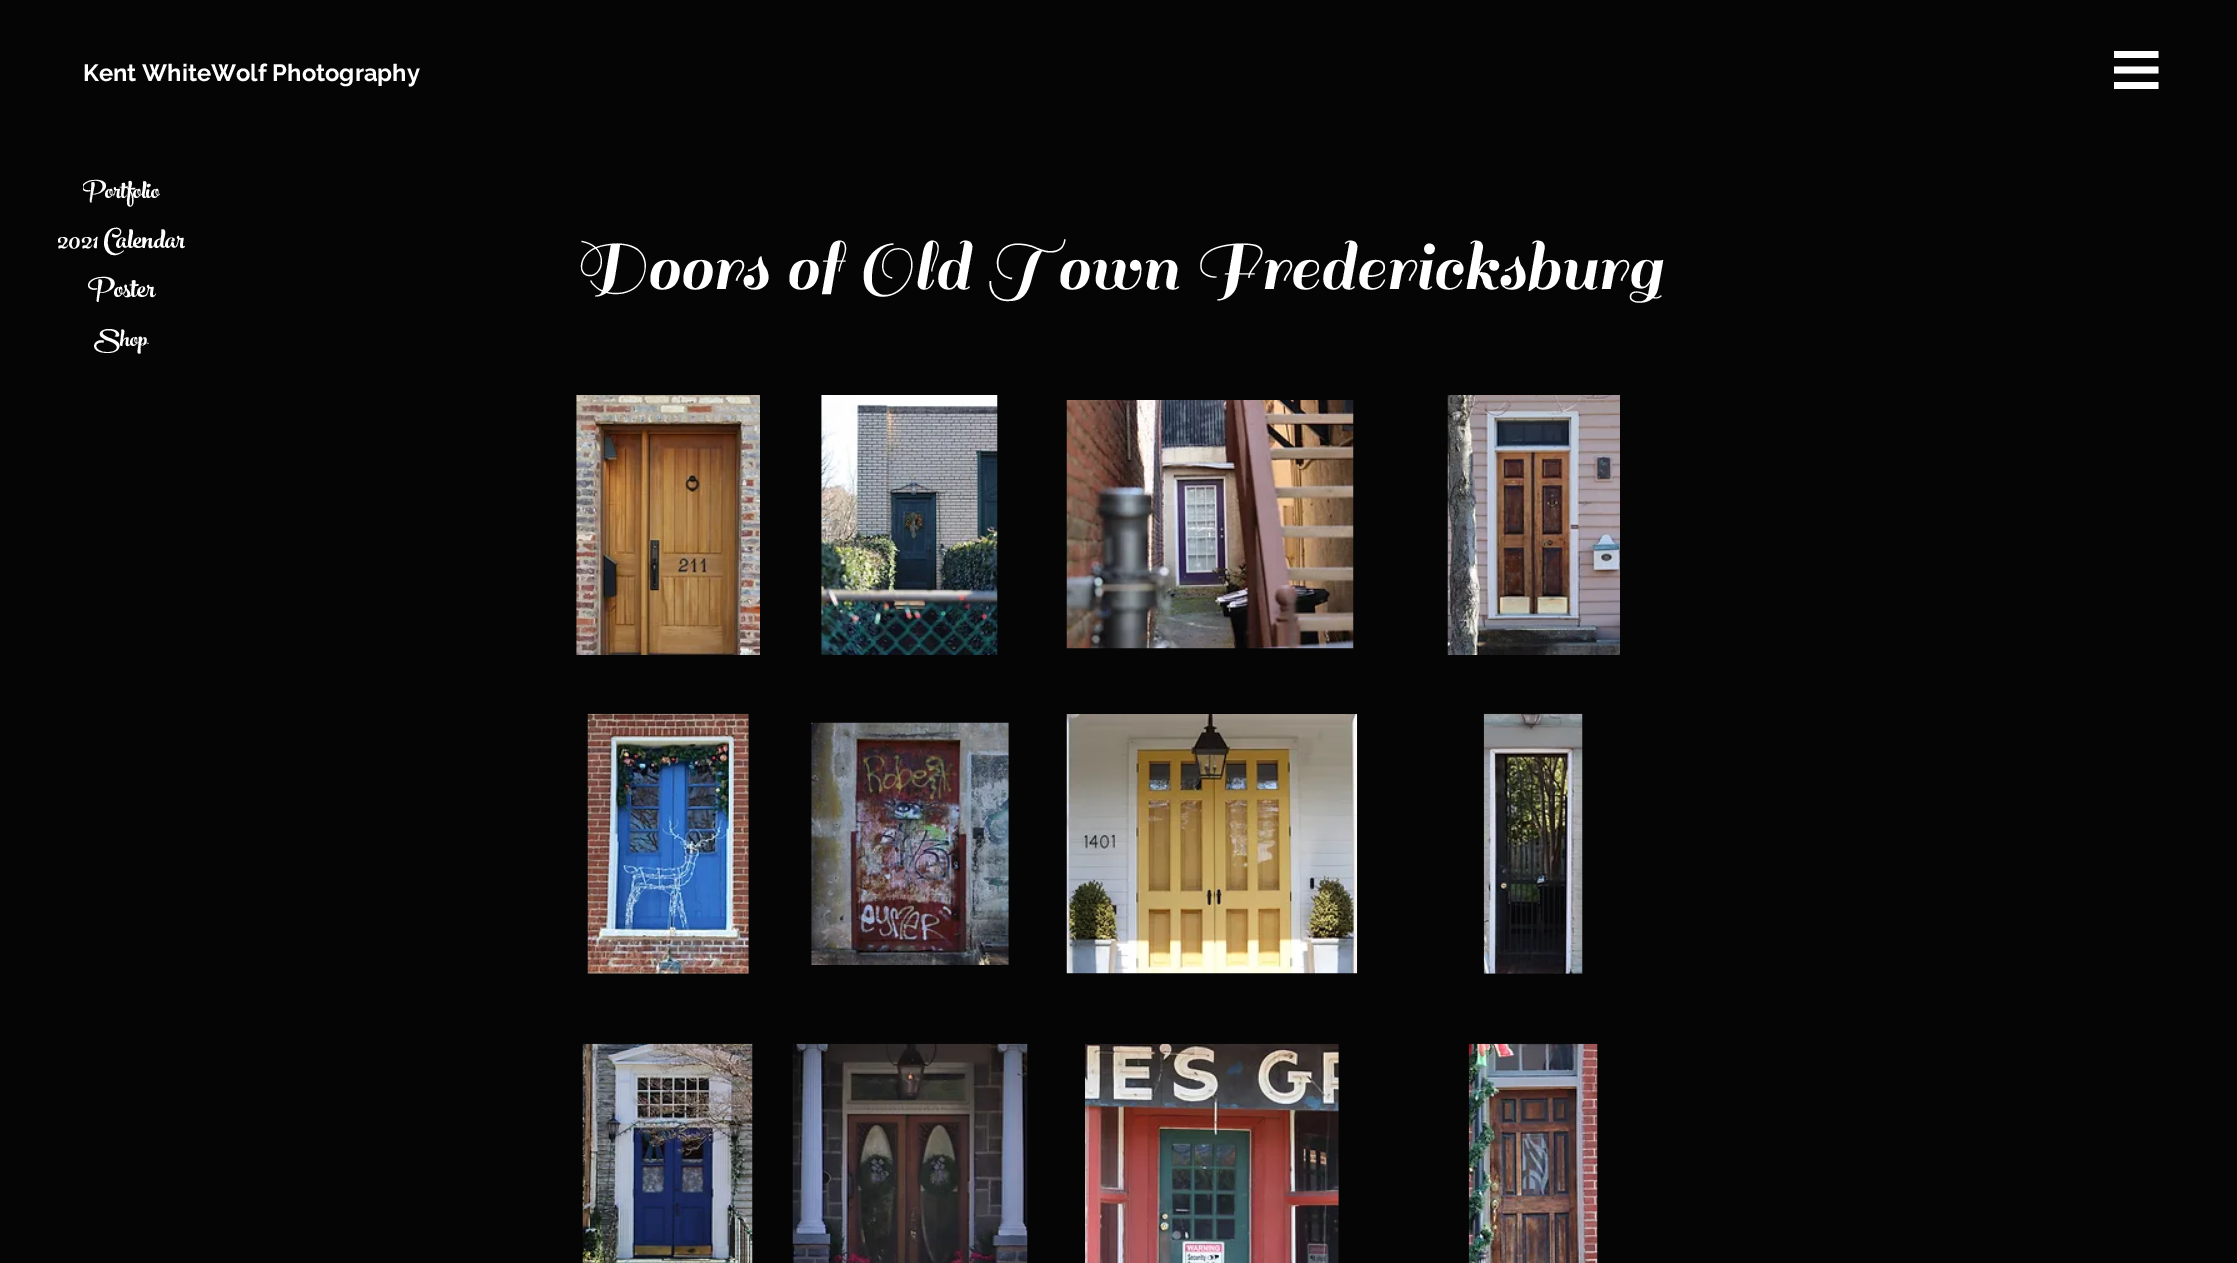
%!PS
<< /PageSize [2237 1263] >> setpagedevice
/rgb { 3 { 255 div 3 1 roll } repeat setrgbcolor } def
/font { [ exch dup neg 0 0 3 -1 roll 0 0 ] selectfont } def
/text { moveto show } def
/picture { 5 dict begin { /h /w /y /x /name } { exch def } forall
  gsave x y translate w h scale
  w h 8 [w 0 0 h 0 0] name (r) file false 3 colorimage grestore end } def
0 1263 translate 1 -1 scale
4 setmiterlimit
5 5 5 rgb
0 0 2237 1263 rectfill
255 255 255 rgb
3.8 setlinewidth
2156.5 53 moveto 0 3 rlineto -40.5 0 rlineto 0 -3 rlineto closepath 2156.5 68.5 moveto 0 3 rlineto -40.5 0 rlineto 0 -3 rlineto closepath 2156.5 84 moveto 0 3 rlineto -40.5 0 rlineto 0 -3 rlineto closepath stroke
(img_01.rgb) 576 395 184 260 picture
(img_02.rgb) 821 395 177 260 picture
(img_03.rgb) 1066 400 288 249 picture
(img_04.rgb) 1447 395 173 260 picture
(img_05.rgb) 587 713 162 261 picture
(img_06.rgb) 811 722 198 243 picture
(img_07.rgb) 1066 714 292 260 picture
(img_08.rgb) 1483 713 100 261 picture
(img_09.rgb) 582 1043 171 220 picture
(img_10.rgb) 792 1043 236 220 picture
(img_11.rgb) 1085 1043 254 220 picture
(img_12.rgb) 1468 1043 130 220 picture
/Raleway-Bold 23.75 font
(Kent WhiteWolf Photography) 83 81 text
gsave
83 169 77 50 rectclip
/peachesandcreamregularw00-Regular 36 font
(Portfolio) 82 198 text
grestore
gsave
58 219 127 50 rectclip
/peachesandcreamregularw00-Regular 40 font
(2021 Calendar) 58 248 text
grestore
/peachesandcreamregularw00-Regular 40 font
(Poster) 88 297 text
/peachesandcreamregularw00-Regular 35 font
(Shop) 94 346 text
/Sail-Regular 75 font
(Doors of Old Town Fredericksburg) 573 289 text
showpage
